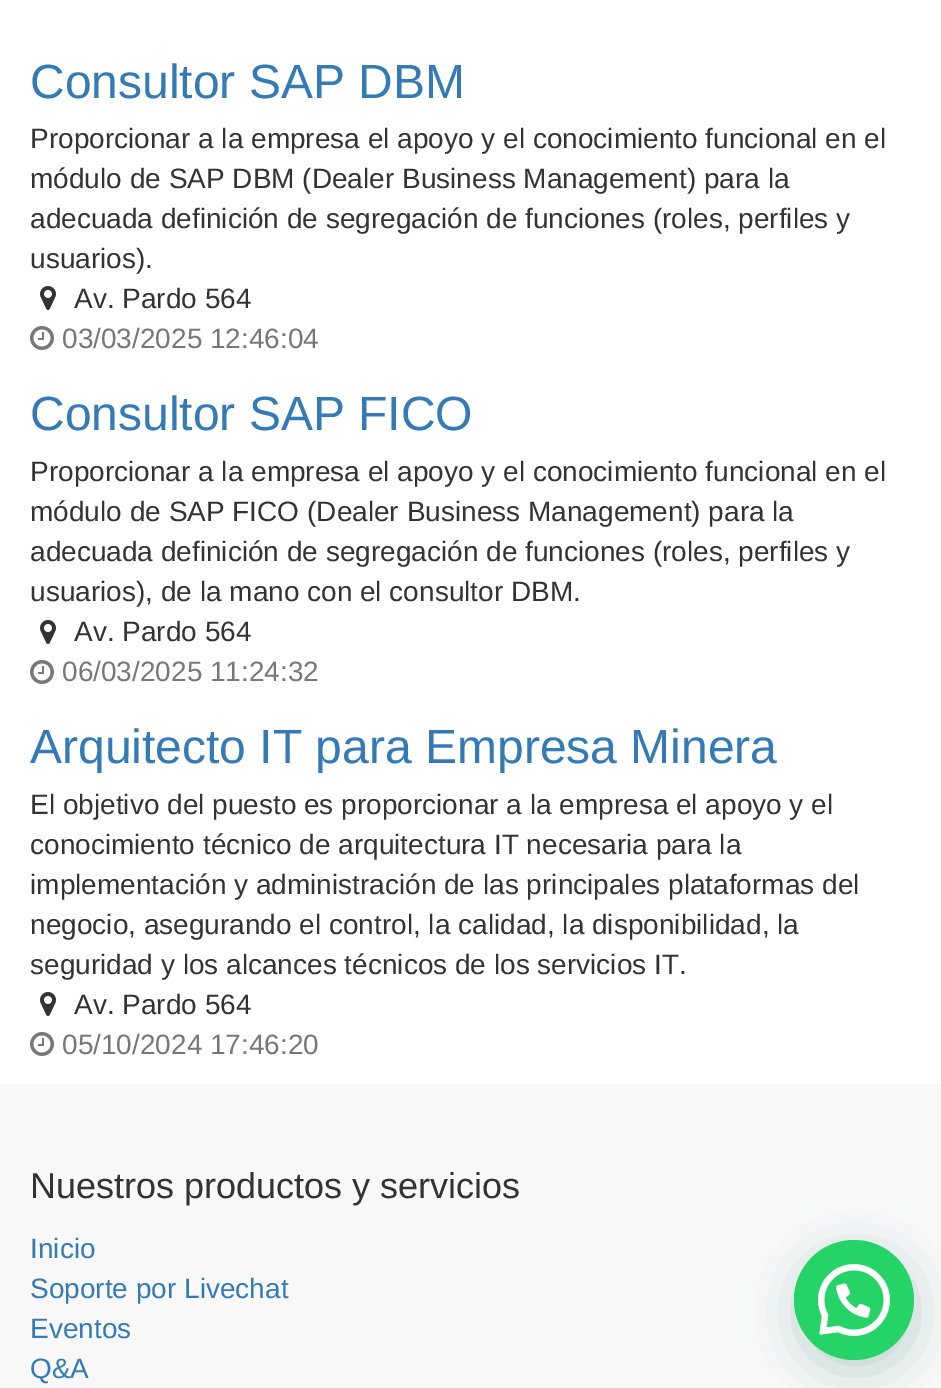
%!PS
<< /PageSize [941 1388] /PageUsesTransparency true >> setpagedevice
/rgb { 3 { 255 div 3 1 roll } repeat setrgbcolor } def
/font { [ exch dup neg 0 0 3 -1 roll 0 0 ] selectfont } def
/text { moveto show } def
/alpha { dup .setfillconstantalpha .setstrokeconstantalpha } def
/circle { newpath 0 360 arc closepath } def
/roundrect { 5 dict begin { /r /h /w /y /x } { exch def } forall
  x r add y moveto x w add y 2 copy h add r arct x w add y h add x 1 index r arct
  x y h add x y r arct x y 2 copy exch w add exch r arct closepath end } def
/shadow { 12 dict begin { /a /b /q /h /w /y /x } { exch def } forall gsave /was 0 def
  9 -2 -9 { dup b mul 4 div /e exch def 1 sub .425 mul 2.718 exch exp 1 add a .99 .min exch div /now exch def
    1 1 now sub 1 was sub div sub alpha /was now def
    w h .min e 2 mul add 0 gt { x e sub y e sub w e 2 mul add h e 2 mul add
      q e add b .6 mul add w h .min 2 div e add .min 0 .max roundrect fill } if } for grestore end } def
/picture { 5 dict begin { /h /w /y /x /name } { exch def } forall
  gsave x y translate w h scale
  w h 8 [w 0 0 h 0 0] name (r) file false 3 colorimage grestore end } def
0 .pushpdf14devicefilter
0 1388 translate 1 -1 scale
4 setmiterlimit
255 255 255 rgb
0 0 941 1388 rectfill
(img_01.rgb) 40 286 16 24 picture
(img_02.rgb) 30 326 24 24 picture
(img_01.rgb) 40 620 16 24 picture
(img_02.rgb) 30 660 24 24 picture
(img_01.rgb) 40 992 16 24 picture
(img_02.rgb) 30 1032 24 24 picture
248 248 248 rgb
0 1084 941 304 rectfill
7 94 84 rgb
796 1252 120 120 60 24 0.24 shadow
37 211 102 rgb
854 1300 60 circle fill
(img_03.rgb) 818 1264 72 72 picture
/LiberationSans-Regular 48 font
51 122 183 rgb
(Consultor SAP DBM) 30 98 text
/LiberationSans-Regular 28 font
51 51 51 rgb
(Proporcionar a la empresa el apoyo y el conocimiento funcional en el) 30 148 text
(módulo de SAP DBM \(Dealer Business Management\) para la) 30 188 text
(adecuada definición de segregación de funciones \(roles, perfiles y) 30 228 text
(usuarios\).) 30 268 text
(Av. Pardo 564) 74 308 text
119 119 119 rgb
(03/03/2025 12:46:04) 62 348 text
/LiberationSans-Regular 48 font
51 122 183 rgb
(Consultor SAP FICO) 30 430 text
/LiberationSans-Regular 28 font
51 51 51 rgb
(Proporcionar a la empresa el apoyo y el conocimiento funcional en el) 30 481 text
(módulo de SAP FICO \(Dealer Business Management\) para la) 30 521 text
(adecuada definición de segregación de funciones \(roles, perfiles y) 30 561 text
(usuarios\), de la mano con el consultor DBM.) 30 601 text
(Av. Pardo 564) 74 641 text
119 119 119 rgb
(06/03/2025 11:24:32) 62 681 text
/LiberationSans-Regular 48 font
51 122 183 rgb
(Arquitecto IT para Empresa Minera) 30 763 text
/LiberationSans-Regular 28 font
51 51 51 rgb
(El objetivo del puesto es proporcionar a la empresa el apoyo y el) 30 814 text
(conocimiento técnico de arquitectura IT necesaria para la) 30 854 text
(implementación y administración de las principales plataformas del) 30 894 text
(negocio, asegurando el control, la calidad, la disponibilidad, la) 30 934 text
(seguridad y los alcances técnicos de los servicios IT.) 30 974 text
(Av. Pardo 564) 74 1014 text
119 119 119 rgb
(05/10/2024 17:46:20) 62 1054 text
/LiberationSans-Regular 36 font
51 51 51 rgb
(Nuestros productos y servicios) 30 1198 text
/LiberationSans-Regular 28 font
51 122 183 rgb
(Inicio) 30 1258 text
(Soporte por Livechat) 30 1298 text
(Eventos) 30 1338 text
(Q&A) 30 1378 text
.poppdf14devicefilter showpage
